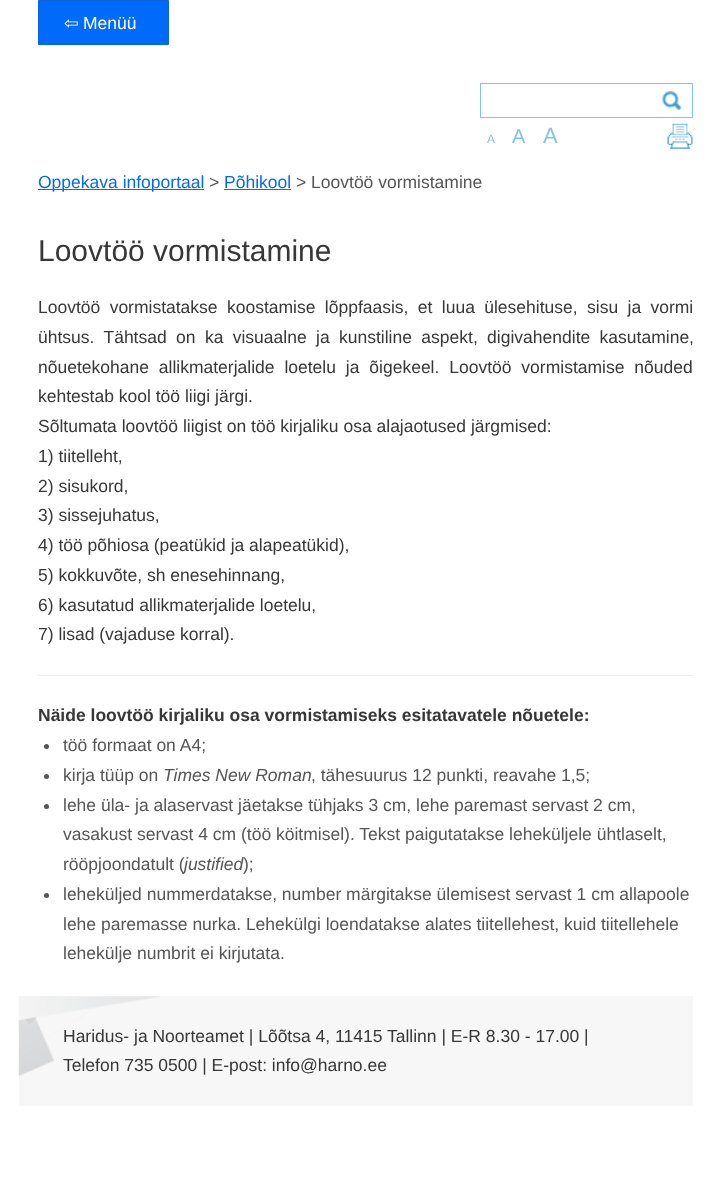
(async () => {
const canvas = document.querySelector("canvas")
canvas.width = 711
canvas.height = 1190
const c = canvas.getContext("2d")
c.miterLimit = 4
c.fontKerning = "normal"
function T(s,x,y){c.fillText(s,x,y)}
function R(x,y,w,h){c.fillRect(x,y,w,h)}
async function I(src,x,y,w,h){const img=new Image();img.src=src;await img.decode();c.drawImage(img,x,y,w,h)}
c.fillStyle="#fff"
R(0,0,711,1190)
c.fillStyle="#006bfa"
c.beginPath()
c.rect(38.5,.5,130,44)
c.fill()
c.strokeStyle="#0a65dd"
c.stroke()
c.font="17.5px DejaVu Sans"
c.fillStyle="#fff"
T("⇦",64,29)
c.font="17.5px Liberation Sans"
T("Menüü",83,29)
c.strokeStyle="#81c4ed"
c.strokeRect(480.5,83.5,212,34)
await I("1.png",662,91,20,19)
c.font="12px Liberation Sans"
c.fillStyle="#81c4ed"
T("A",487,143)
c.font="20px Liberation Sans"
T("A",512,143)
c.font="22px Liberation Sans"
T("A",543,143)
await I("2.png",667,123,26,26)
c.fillStyle="#006bfa"
R(38,189,166,1)
c.font="17.5px Liberation Sans"
T("Oppekava infoportaal",38,188)
c.fillStyle="#555"
T(">",209,188)
c.fillStyle="#006bfa"
T("Põhikool",224,188)
R(224,189,67,1)
c.fillStyle="#555"
T("> Loovtöö vormistamine",296,188)
c.font="30px Liberation Sans"
c.fillStyle="#373737"
T("Loovtöö vormistamine",38,261)
c.wordSpacing="4.5px"
c.font="17.5px Liberation Sans"
T("Loovtöö vormistatakse koostamise lõppfaasis, et luua ülesehituse, sisu ja vormi",38,313)
T("ühtsus. Tähtsad on ka visuaalne ja kunstiline aspekt, digivahendite kasutamine,",38,343)
c.wordSpacing="5px"
T("nõuetekohane allikmaterjalide loetelu ja õigekeel. Loovtöö vormistamise nõuded",38,373)
c.wordSpacing="0px"
T("kehtestab kool töö liigi järgi.",38,402)
T("Sõltumata loovtöö liigist on töö kirjaliku osa alajaotused järgmised:",38,432)
T("1) tiitelleht,",38,462)
T("2) sisukord,",38,492)
T("3) sissejuhatus,",38,521)
T("4) töö põhiosa (peatükid ja alapeatükid),",38,551)
T("5) kokkuvõte, sh enesehinnang,",38,581)
T("6) kasutatud allikmaterjalide loetelu,",38,611)
T("7) lisad (vajaduse korral).",38,640)
c.fillStyle="#eee"
R(38,675,655,1)
c.font="bold 17.5px Liberation Sans"
c.fillStyle="#373737"
T("Näide loovtöö kirjaliku osa vormistamiseks esitatavatele nõuetele:",38,721)
c.fillStyle="#555"
c.beginPath()
c.arc(46.5,746.5,2.5,0,7)
c.fill()
c.font="17.5px Liberation Sans"
T("töö formaat on A4;",63,751)
c.beginPath()
c.arc(46.5,776.5,2.5,0,7)
c.fill()
T("kirja tüüp on",63,781)
c.font="italic 17.5px Liberation Sans"
T("Times New Roman",163,781)
c.font="17.5px Liberation Sans"
T(", tähesuurus 12 punkti, reavahe 1,5;",311,781)
c.beginPath()
c.arc(46.5,806.5,2.5,0,7)
c.fill()
T("lehe üla- ja alaservast jäetakse tühjaks 3 cm, lehe paremast servast 2 cm,",63,811)
T("vasakust servast 4 cm (töö köitmisel). Tekst paigutatakse leheküljele ühtlaselt,",63,840)
T("rööpjoondatult (",63,870)
c.font="italic 17.5px Liberation Sans"
T("justified",184,870)
c.font="17.5px Liberation Sans"
T(");",243,870)
c.beginPath()
c.arc(46.5,895.5,2.5,0,7)
c.fill()
T("leheküljed nummerdatakse, number märgitakse ülemisest servast 1 cm allapoole",63,900)
T("lehe paremasse nurka. Lehekülgi loendatakse alates tiitellehest, kuid tiitellehele",63,930)
T("lehekülje numbrit ei kirjutata.",63,959)
c.fillStyle="#f7f7f7"
R(19,996,674,110)
await I("3.png",18,996,142,81)
c.fillStyle="#373737"
T("Haridus- ja Noorteamet | Lõõtsa 4, 11415 Tallinn | E-R 8.30 - 17.00 |",63,1042)
T("Telefon 735 0500 | E-post: info@harno.ee",63,1071)
})()
